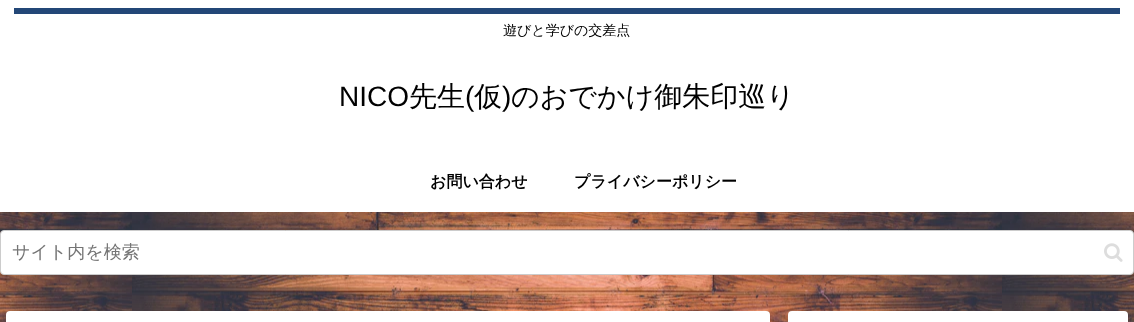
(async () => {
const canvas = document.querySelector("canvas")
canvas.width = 1134
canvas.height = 322
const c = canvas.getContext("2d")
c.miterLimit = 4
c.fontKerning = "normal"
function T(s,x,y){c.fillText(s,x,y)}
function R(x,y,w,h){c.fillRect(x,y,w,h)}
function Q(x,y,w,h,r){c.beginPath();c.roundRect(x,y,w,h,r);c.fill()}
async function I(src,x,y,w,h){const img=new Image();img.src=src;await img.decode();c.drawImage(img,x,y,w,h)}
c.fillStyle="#fff"
R(0,0,1134,322)
await I("1.png",0,212,1134,110)
c.fillStyle="#234777"
R(14,8,1106,6)
c.font="500 14px WenQuanYi Zen Hei"
c.fillStyle="#000"
T("遊びと学びの交差点",503,35)
c.font="28px Liberation Sans"
T("NICO",339,106)
c.font="500 28px WenQuanYi Zen Hei"
T("先生",409,106)
c.font="28px Liberation Sans"
T("(",465,106)
c.font="500 28px WenQuanYi Zen Hei"
T("仮",474,106)
c.font="28px Liberation Sans"
T(")",502,106)
c.font="500 28px WenQuanYi Zen Hei"
T("のおでかけ御朱印巡り",511,106)
c.font="bold 16px WenQuanYi Zen Hei"
T("お問い合わせ",430,187)
T("プライバシーポリシー",574,187)
c.fillStyle="#fff"
c.beginPath()
c.roundRect(.5,230.5,1133,44,3.5)
c.fill()
c.strokeStyle="#ccc"
c.stroke()
c.font="500 18px WenQuanYi Zen Hei"
c.fillStyle="#757575"
T("サイト内を検索",12,258)
await I("2.png",1104,243,19,19)
c.fillStyle="#fff"
Q(6,311,764,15,4)
Q(788,311,340,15,4)
})()
